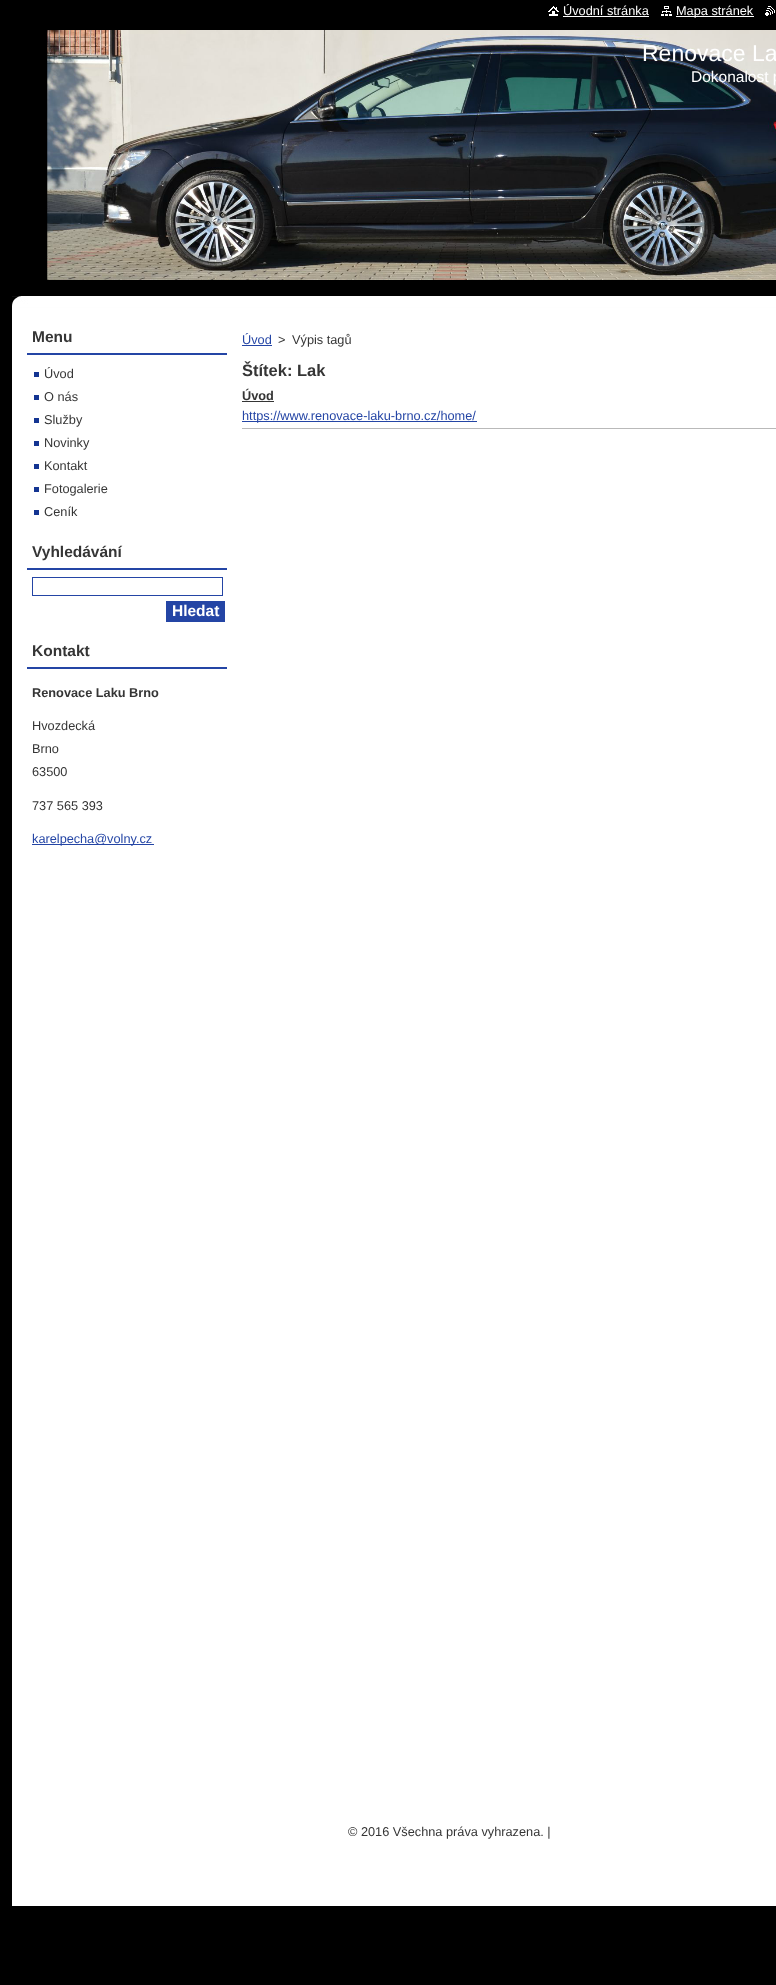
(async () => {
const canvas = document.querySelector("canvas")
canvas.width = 776
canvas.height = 1985
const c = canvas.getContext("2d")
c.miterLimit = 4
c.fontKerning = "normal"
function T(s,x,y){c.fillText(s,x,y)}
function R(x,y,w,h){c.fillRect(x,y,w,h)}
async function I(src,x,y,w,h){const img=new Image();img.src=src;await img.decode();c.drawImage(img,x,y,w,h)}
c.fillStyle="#000"
R(0,0,776,1985)
c.fillStyle="#fff"
R(12,308,764,1598)
await I("1.png",548,6,11,10)
c.font="12.75px Liberation Sans"
T("Úvodní stránka",563,15)
R(563,16,86,1)
await I("2.png",661,6,11,10)
R(676,16,78,1)
T("Mapa stránek",676,15)
await I("3.png",765,6,10,10)
await I("4.png",12,296,764,12)
await I("5.png",47,30,729,250)
c.font="23px Liberation Sans"
T("Renovace La",642,61)
c.font="15.5px Liberation Sans"
T("Dokonalost p",691,82)
c.fillStyle="#2445a5"
R(27,353,200,2)
c.font="bold 15.5px Liberation Sans"
c.fillStyle="#353535"
T("Menu",32,342)
c.font="12.75px Liberation Sans"
T("Úvod",44,378)
c.fillStyle="#143592"
R(34,372,5,5)
c.fillStyle="#353535"
T("O nás",44,401)
c.fillStyle="#143592"
R(34,395,5,5)
c.fillStyle="#353535"
T("Služby",44,424)
c.fillStyle="#143592"
R(34,418,5,5)
c.fillStyle="#353535"
T("Novinky",44,447)
c.fillStyle="#143592"
R(34,441,5,5)
c.fillStyle="#353535"
T("Kontakt",44,470)
c.fillStyle="#143592"
R(34,464,5,5)
c.fillStyle="#353535"
T("Fotogalerie",44,493)
c.fillStyle="#143592"
R(34,487,5,5)
c.fillStyle="#353535"
T("Ceník",44,516)
c.fillStyle="#143592"
R(34,510,5,5)
c.fillStyle="#2445a5"
R(27,568,200,2)
c.font="bold 15.5px Liberation Sans"
c.fillStyle="#353535"
T("Vyhledávání",32,557)
c.strokeStyle="#2445a5"
c.strokeRect(32.5,577.5,190,18)
c.fillStyle="#2445a5"
R(166,601,59,21)
c.fillStyle="#fff"
T("Hledat",172,616)
c.fillStyle="#2445a5"
R(27,667,200,2)
c.fillStyle="#353535"
T("Kontakt",32,656)
c.font="bold 12.75px Liberation Sans"
T("Renovace Laku Brno",32,697)
c.font="12.75px Liberation Sans"
T("Hvozdecká",32,730)
T("Brno",32,753)
T("63500",32,776)
T("737 565 393",32,810)
c.fillStyle="#2445a5"
R(32,844,48,1)
T("karelpec",32,843)
R(80,844,57,1)
T("ha@volny.cz",80,843)
R(137,844,17,1)
T("Úvod",242,344)
R(242,345,30,1)
c.fillStyle="#353535"
T(">",278,344)
T("Výpis tagů",292,344)
c.font="bold 16.5px Liberation Sans"
T("Štítek: Lak",242,376)
c.fillStyle="#b9b9b9"
R(242,428,534,1)
c.font="bold 12.75px Liberation Sans"
c.fillStyle="#353535"
T("Úvod",242,400)
R(242,401,32,1)
c.fillStyle="#2445a5"
R(242,421,235,1)
c.font="12.75px Liberation Sans"
T("https://www.renovace-laku-brno.cz/home/",242,420)
c.fillStyle="#353535"
T("© 2016 Všechna práva vyhrazena. |",348,1836)
})()
